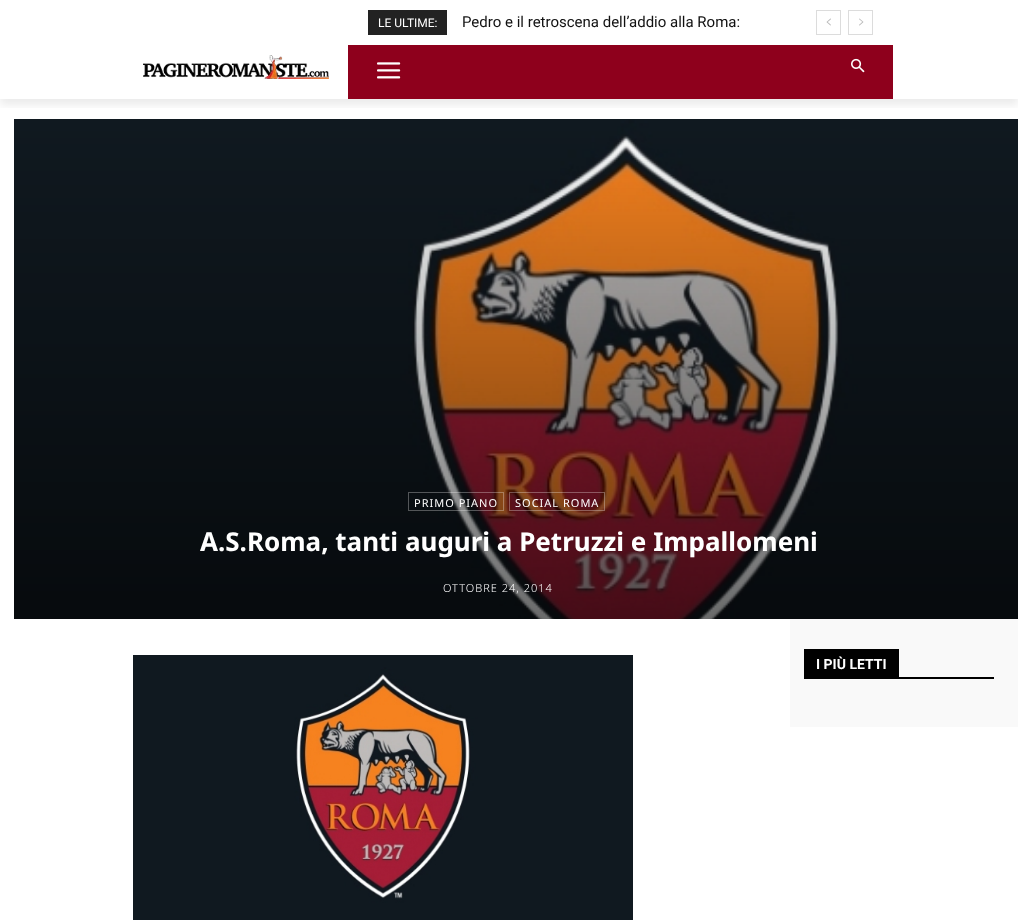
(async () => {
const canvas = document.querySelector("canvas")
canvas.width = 1018
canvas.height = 920
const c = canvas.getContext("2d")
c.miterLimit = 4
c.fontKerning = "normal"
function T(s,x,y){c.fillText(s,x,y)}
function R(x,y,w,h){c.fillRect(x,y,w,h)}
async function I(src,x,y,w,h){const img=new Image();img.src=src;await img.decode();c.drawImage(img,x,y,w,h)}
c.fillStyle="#fff"
R(0,0,1018,920)
c.fillStyle="#222"
R(368,10,79,25)
c.strokeStyle="#dcdcdc"
c.strokeRect(816.5,10.5,24,24)
await I("1.png",826,18,5,8)
c.strokeRect(848.5,10.5,24,24)
await I("2.png",859,18,5,8)
c.fillStyle="#8e001c"
R(348,45,545,54)
await I("3.png",377,62,24,17)
await I("5.png",143,55,186,24)
c.save()
c.beginPath()
c.rect(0,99,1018,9)
c.clip()
c.fillStyle="#00000014"
c.filter="blur(4px)"
c.beginPath()
c.rect(0,6,1018,99)
c.fill()
c.filter="none"
c.restore()
c.font="12px Roboto"
c.fillStyle="#fff"
T("LE ULTIME:",378,27)
c.font="15px Roboto"
c.fillStyle="#111"
T("Pedro e il retroscena dell’addio alla Roma:",462,27)
await I("4.png",851,58,14,15)
await I("6.png",14,119,1004,500)
c.strokeStyle="#ffffff4d"
c.strokeRect(408.5,492.5,95,18)
c.letterSpacing="1px"
c.font="11px Noto Sans"
c.fillStyle="#fff"
T("PRIMO PIANO",414,507)
c.strokeRect(509.5,492.5,95,18)
T("SOCIAL ROMA",515,507)
c.letterSpacing="0px"
c.font="bold 26px Noto Sans"
T("A.S.Roma, tanti auguri a Petruzzi e Impallomeni",200,551)
c.letterSpacing="1px"
c.font="300 11px Noto Sans"
T("OTTOBRE 24, 2014",443,592)
await I("7.png",133,655,500,265)
c.fillStyle="#f9f9f9"
R(790,619,228,108)
c.fillStyle="#000"
R(804,677,190,2)
R(804,649,95,28)
c.letterSpacing="0px"
c.font="bold 14px Roboto"
c.fillStyle="#fff"
T("I PIÙ LETTI",816,669)
})()
